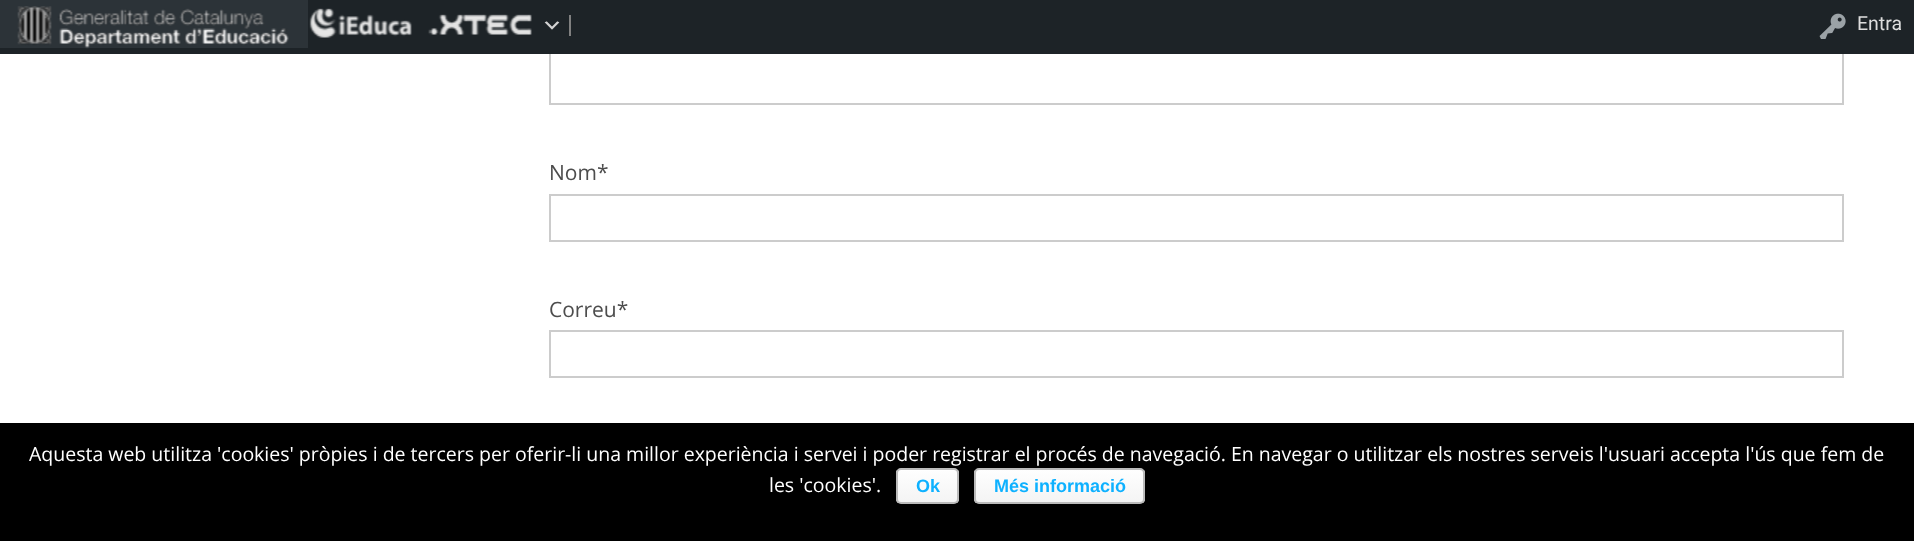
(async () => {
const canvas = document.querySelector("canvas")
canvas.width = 1914
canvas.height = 541
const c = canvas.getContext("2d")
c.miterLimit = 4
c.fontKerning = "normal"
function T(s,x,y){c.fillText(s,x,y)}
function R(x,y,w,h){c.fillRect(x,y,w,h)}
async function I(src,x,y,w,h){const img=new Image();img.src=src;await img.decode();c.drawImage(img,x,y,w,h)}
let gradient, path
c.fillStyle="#fff"
R(0,0,1914,541)
c.strokeStyle="#ccc"
c.lineWidth=2
c.strokeRect(550,-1,1293,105)
c.fillStyle="#1d2327"
R(0,0,1914,54)
c.fillStyle="#2c3338"
R(0,0,308,48)
await I("1.png",17,6,272,43)
await I("2.png",309,8,103,30)
await I("3.png",428,14,104,21)
c.fillStyle="#808080"
R(569,15,2,21)
await I("4.png",544,21,16,9)
await I("5.png",1819,13,27,26)
c.font="19.5px Roboto"
c.fillStyle="#ddd"
T("Entra",1857,30)
c.font="21px Open Sans"
c.fillStyle="#4d4d4d"
T("Nom*",549,180)
c.strokeRect(550,195,1293,46)
T("Correu*",549,317)
c.strokeRect(550,331,1293,46)
c.fillStyle="#000"
R(0,423,1914,118)
c.font="19.5px Open Sans"
c.fillStyle="#fff"
T("Aquesta web utilitza 'cookies' pròpies i de tercers per oferir-li una millor experiència i servei i poder registrar el procés de navegació. En navegar o utilitzar els nostres serveis l'usuari accepta l'ús que fem de",29,461)
T("les 'cookies'.",769,492)
c.save()
c.beginPath()
c.roundRect(896,468,63,36,5)
c.clip()
gradient = c.createLinearGradient(927,470,927,503)
gradient.addColorStop(0,"#fefefe")
gradient.addColorStop(1,"#f4f4f4")
c.fillStyle = gradient
R(896,470,63,33)
c.restore()
path = new Path2D("M900 471h54c2 0 3 1 3 3c0-6-8-4-12-4h-36c-4 0-12-2-12 4c0-2 1-3 3-3z")
c.fill(path)
c.beginPath()
c.roundRect(897,469,61,34,4)
c.strokeStyle="#bbb"
c.stroke()
c.font="bold 18px Liberation Sans"
c.fillStyle="#0eb1ff"
T("Ok",916,492)
c.save()
c.beginPath()
c.roundRect(974,468,171,36,5)
c.clip()
gradient = c.createLinearGradient(1059,470,1059,503)
gradient.addColorStop(0,"#fefefe")
gradient.addColorStop(1,"#f4f4f4")
c.fillStyle = gradient
R(974,470,171,33)
c.restore()
c.beginPath()
c.roundRect(975,469,169,34,4)
c.stroke()
T("Més informació",994,492)
})()
